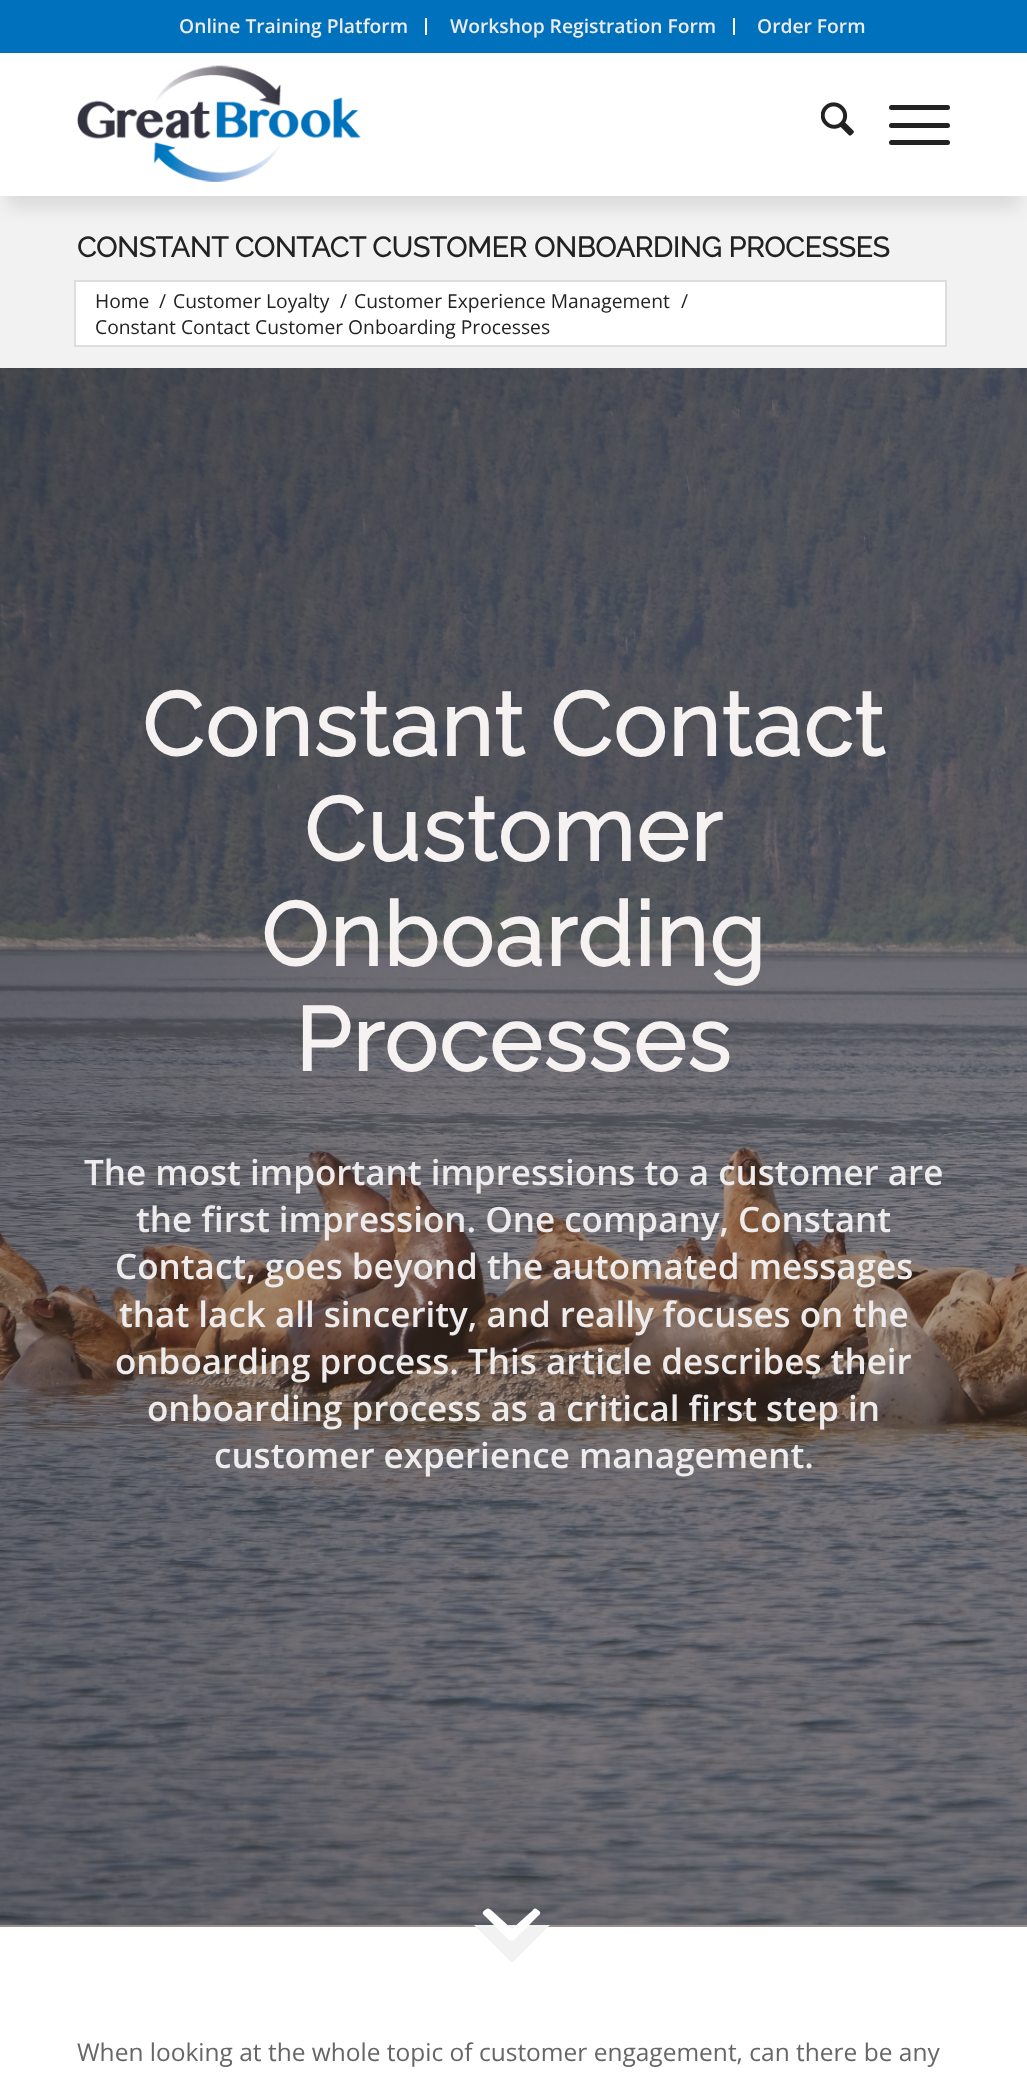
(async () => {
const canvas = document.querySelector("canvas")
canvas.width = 1027
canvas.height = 2079
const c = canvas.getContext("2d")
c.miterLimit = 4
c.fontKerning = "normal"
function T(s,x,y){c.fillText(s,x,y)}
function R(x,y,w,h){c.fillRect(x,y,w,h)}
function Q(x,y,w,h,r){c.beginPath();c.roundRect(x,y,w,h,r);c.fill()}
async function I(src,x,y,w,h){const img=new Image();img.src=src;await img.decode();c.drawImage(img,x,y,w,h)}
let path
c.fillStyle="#fff"
R(0,0,1027,2079)
c.fillStyle="#f2f2f2"
R(0,196,1027,172)
c.fillStyle="#0000001a"
c.filter="blur(9px)"
c.beginPath()
c.rect(7,25,1013,182)
c.fill()
c.filter="none"
c.fillStyle="#0071bc"
R(0,0,1027,53)
c.fillStyle="#fff"
R(425,18,2,17)
c.font="600 19.25px Open Sans"
c.fillStyle="#edebeb"
T("Online Training Platform",179,33)
c.fillStyle="#fff"
R(733,18,2,17)
c.fillStyle="#edebeb"
T("Workshop Registration Form",450,33)
T("Order Form",757,33)
c.fillStyle="#fff"
R(0,53,1027,143)
await I("1.png",77,65,284,117)
await I("2.png",821,102,33,34)
c.fillStyle="#222"
Q(889,123,61,5,2.5)
Q(889,105,61,5,2.5)
Q(889,140,61,5,2.5)
c.font="bold 28px Raleway"
T("CONSTANT CONTACT CUSTOMER ONBOARDING PROCESSES",77,257)
c.fillStyle="#fff"
c.beginPath()
c.rect(75,281,871,65)
c.fill()
c.strokeStyle="#ddd"
c.lineWidth=2
c.stroke()
c.font="19.25px Open Sans"
c.fillStyle="#222"
T("Home",95,308)
T("/",159,308)
T("Customer Loyalty",173,308)
T("/",340,308)
T("Customer Experience Management",354,308)
T("/",681,308)
T("Constant Contact Customer Onboarding Processes",95,334)
await I("3.png",0,368,1027,1557)
c.fillStyle="#e4e4e4"
R(0,1925,1027,2)
c.fillStyle="#50392c80"
R(0,368,1027,1559)
c.letterSpacing="1.75px"
c.font="bold 89.25px Raleway"
c.fillStyle="#f7f2f2"
T("Constant Contact",142,756)
T("Customer",304,861)
T("Onboarding",261,966)
T("Processes",295,1071)
c.letterSpacing="0px"
c.font="600 35px Open Sans"
c.fillStyle="#edebeb"
T("The most important impressions to a customer are",84,1185)
T("the first impression. One company, Constant",136,1232)
T("Contact, goes beyond the automated messages",115,1279)
T("that lack all sincerity, and really focuses on the",119,1327)
T("onboarding process. This article describes their",115,1374)
T("onboarding process as a critical first step in",147,1421)
T("customer experience management.",214,1468)
c.save()
c.beginPath()
c.rect(469,1925,88,44)
c.clip()
c.fillStyle="#f2f2f2"
path = new Path2D("M512 1839l62 62l-62 62l-62-62z")
c.fill(path)
c.restore()
c.fillStyle="#fff"
path = new Path2D("M533 1910c1-2 3-2 5 0c3 2 3 4 0 6l-24 24c-1 1-3 1-5 0l-24-24c-3-2-3-4 0-6c2-2 4-2 6 0l21 19z")
c.fill(path)
c.font="24.5px Open Sans"
c.fillStyle="#666"
T("When looking at the whole topic of customer engagement, can there be any",77,2061)
})()
